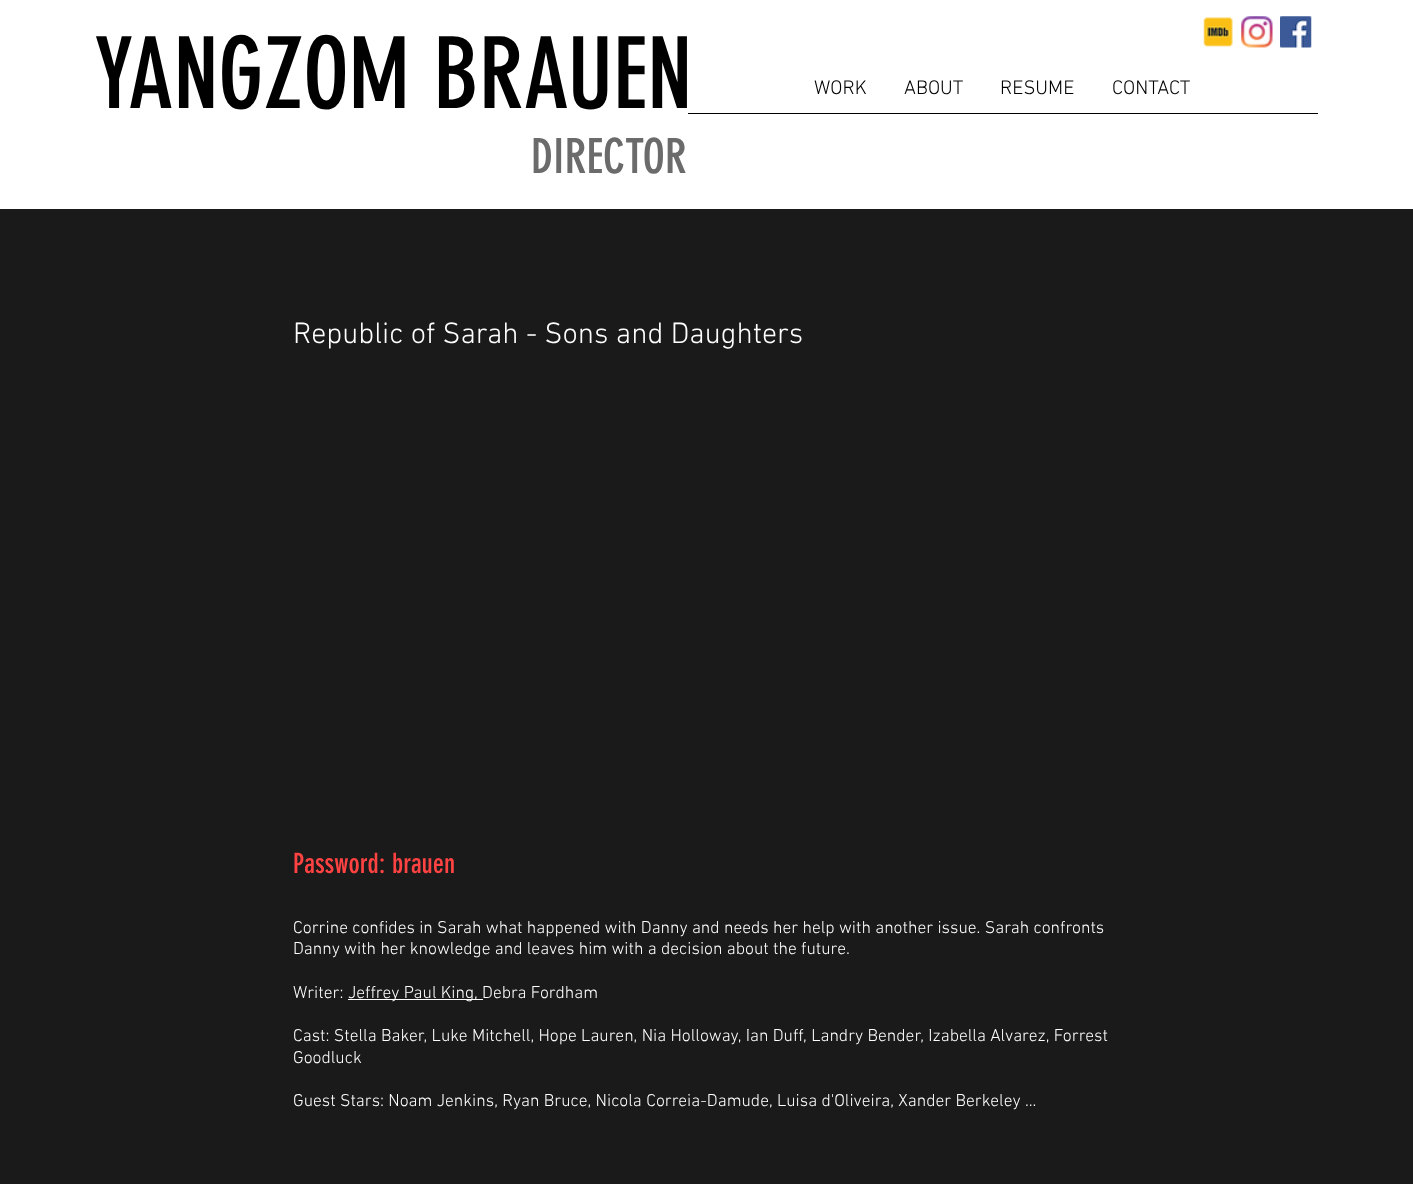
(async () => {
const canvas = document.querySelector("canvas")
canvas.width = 1413
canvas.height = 1184
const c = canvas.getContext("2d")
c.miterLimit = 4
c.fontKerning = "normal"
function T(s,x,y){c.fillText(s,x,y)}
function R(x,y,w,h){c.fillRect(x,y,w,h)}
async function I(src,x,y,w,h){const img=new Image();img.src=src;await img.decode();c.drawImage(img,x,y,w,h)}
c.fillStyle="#1a1a1a"
R(0,0,1413,1184)
c.fillStyle="#fff"
R(0,0,1413,209)
c.font="97.5px 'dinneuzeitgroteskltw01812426'"
c.fillStyle="#000"
T("YANGZOM BRAUEN",94,108)
c.font="300 20px 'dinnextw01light'"
T("WORK",814,94)
T("ABOUT",904,94)
T("RESUME",1000,94)
T("CONTACT",1112,94)
R(688,113,630,1)
await I("1.png",1203,17,30,30)
await I("2.png",1241,16,32,32)
await I("3.png",1280,16,32,32)
c.font="47.5px 'dinneuzeitgroteskltw01812426'"
c.fillStyle="#6b6b6b"
T("DIRECTOR",531,173)
c.font="300 30px 'dinnextw01light'"
c.fillStyle="#fff"
T("Republic of Sarah - Sons and Daughters",293,343)
c.font="27.5px 'dinneuzeitgroteskltw01812426'"
c.fillStyle="#ff4242"
T("Password: brauen",293,873)
c.font="300 17.5px 'dinnextw01light'"
c.fillStyle="#fff"
T("Corrine confides in Sarah what happened with Danny and needs her help with another issue. Sarah confronts",293,933)
T("Danny with her knowledge and leaves him with a decision about the future.",293,954)
T("Writer:",293,998)
R(348,999,135,1)
T("Jeffrey Paul King, Debra Fordham",348,998)
T("Cast: Stella Baker, Luke Mitchell, Hope Lauren, Nia Holloway, Ian Duff, Landry Bender, Izabella Alvarez, Forrest",293,1041)
T("Goodluck",293,1063)
T("Guest Stars: Noam Jenkins, Ryan Bruce, Nicola Correia-Damude, Luisa d'Oliveira, Xander Berkeley ...",293,1106)
})()
